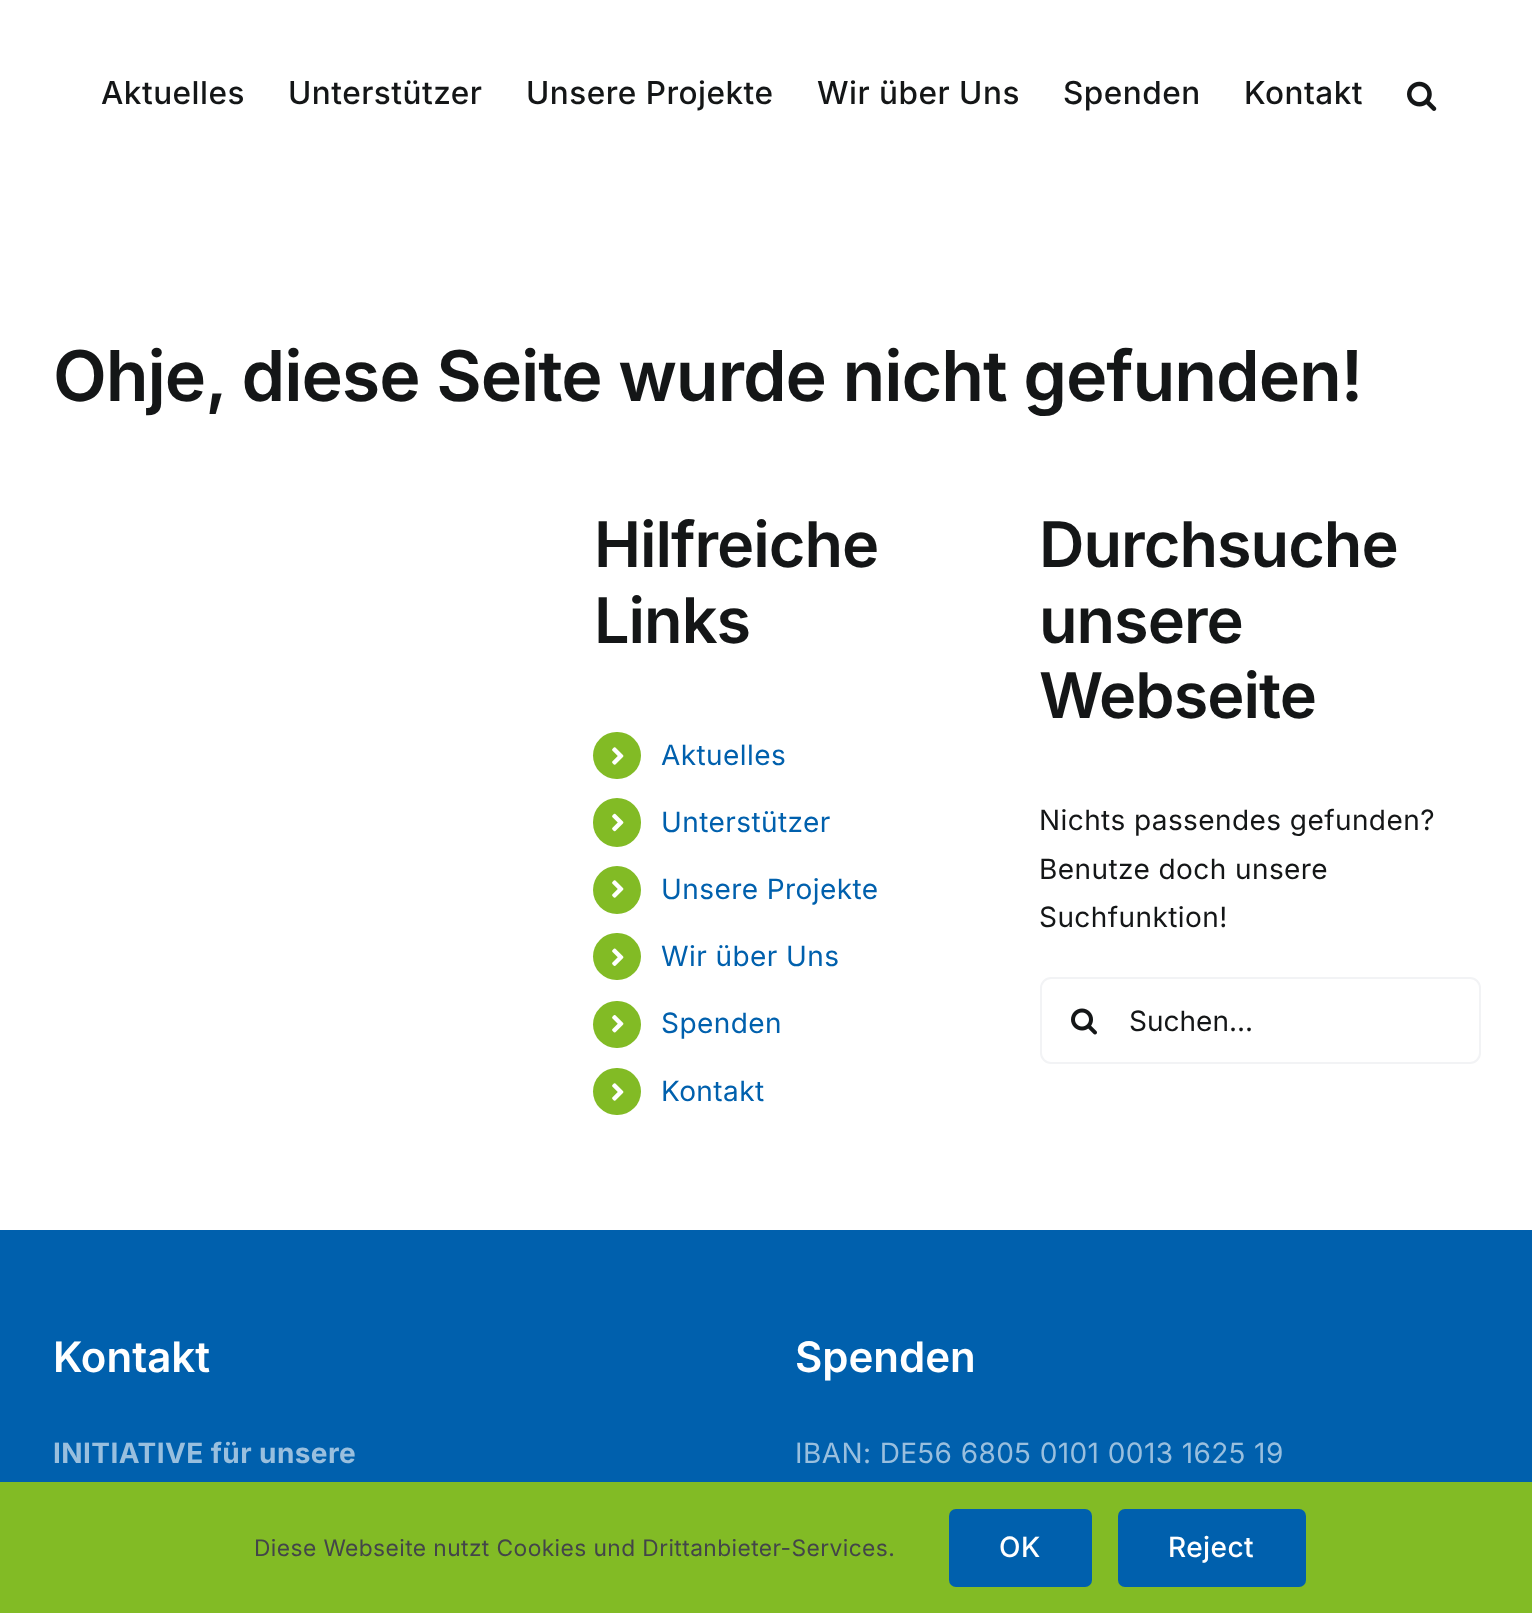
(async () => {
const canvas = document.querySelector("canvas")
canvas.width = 1532
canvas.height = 1613
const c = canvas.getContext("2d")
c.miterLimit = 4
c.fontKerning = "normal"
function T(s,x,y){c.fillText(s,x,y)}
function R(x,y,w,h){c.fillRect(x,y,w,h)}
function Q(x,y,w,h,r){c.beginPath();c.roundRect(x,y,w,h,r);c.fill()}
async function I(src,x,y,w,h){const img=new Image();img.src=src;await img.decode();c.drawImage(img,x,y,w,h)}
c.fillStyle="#fff"
R(0,0,1532,1613)
c.letterSpacing="0.5px"
c.font="500 31.5px Inter"
c.fillStyle="#141617"
T("Aktuelles",101,104)
T("Unterstützer",288,104)
T("Unsere Projekte",526,104)
T("Wir über Uns",817,104)
T("Spenden",1063,104)
T("Kontakt",1244,104)
await I("1.png",1407,81,30,30)
c.letterSpacing="-1.05px"
c.font="600 70px Inter"
T("Ohje, diese Seite wurde nicht gefunden!",53,401)
c.letterSpacing="-1px"
c.font="600 63px Inter"
T("Hilfreiche",594,567)
T("Links",594,643)
c.fillStyle="#82bb25"
Q(593,732,48,47,23.5)
await I("2.png",612,747,12,18)
c.letterSpacing="0.42px"
c.font="28px Inter"
c.fillStyle="#0060ad"
T("Aktuelles",661,765)
c.fillStyle="#82bb25"
Q(593,798,48,49,24)
await I("3.png",612,813,12,19)
c.fillStyle="#0060ad"
T("Unterstützer",661,832)
c.fillStyle="#82bb25"
c.beginPath()
c.arc(617,890,24,0,7)
c.fill()
await I("2.png",612,880,12,18)
c.fillStyle="#0060ad"
T("Unsere Projekte",661,899)
c.fillStyle="#82bb25"
Q(593,933,48,47,23.5)
await I("4.png",612,948,12,18)
c.fillStyle="#0060ad"
T("Wir über Uns",661,966)
c.fillStyle="#82bb25"
Q(593,1001,48,47,23.5)
await I("5.png",612,1015,12,18)
c.fillStyle="#0060ad"
T("Spenden",661,1033)
c.fillStyle="#82bb25"
Q(593,1068,48,47,23.5)
await I("2.png",612,1083,12,18)
c.fillStyle="#0060ad"
T("Kontakt",661,1101)
c.letterSpacing="-1px"
c.font="600 63px Inter"
c.fillStyle="#141617"
T("Durchsuche",1039,567)
T("unsere",1039,643)
T("Webseite",1039,718)
c.letterSpacing="0.42px"
c.font="28px Inter"
T("Nichts passendes gefunden?",1039,830)
T("Benutze doch unsere",1039,879)
T("Suchfunktion!",1039,927)
c.beginPath()
c.roundRect(1041,978,439,85,10)
c.strokeStyle="#f2f3f5"
c.lineWidth=2
c.stroke()
await I("6.png",1071,1008,26,27)
c.letterSpacing="0px"
T("Suchen...",1129,1031)
c.fillStyle="#0060ad"
R(0,1230,1532,252)
c.font="600 42px Inter"
c.fillStyle="#fff"
T("Kontakt",53,1372)
c.letterSpacing="0.42px"
c.font="bold 28px Inter"
c.fillStyle="#99bfde"
T("INITIATIVE für unsere",53,1463)
c.letterSpacing="0px"
c.font="600 42px Inter"
c.fillStyle="#fff"
T("Spenden",795,1372)
c.letterSpacing="0.42px"
c.font="28px Inter"
c.fillStyle="#99bfde"
T("IBAN: DE56 6805 0101 0013 1625 19",795,1463)
c.fillStyle="#82bb25"
R(0,1482,1532,131)
c.font="22.75px Inter"
c.fillStyle="#434549"
T("Diese Webseite nutzt Cookies und Drittanbieter-Services.",254,1556)
c.fillStyle="#0060ad"
Q(949,1509,143,78,7)
c.font="500 28px Inter"
c.fillStyle="#fff"
T("OK",999,1557)
c.fillStyle="#0060ad"
Q(1118,1509,188,78,7)
c.fillStyle="#fff"
T("Reject",1168,1557)
})()
